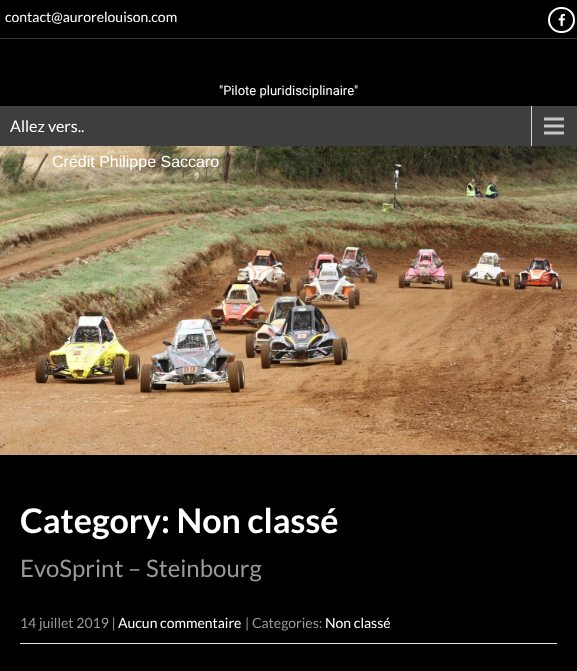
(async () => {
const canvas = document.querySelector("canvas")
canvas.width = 577
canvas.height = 671
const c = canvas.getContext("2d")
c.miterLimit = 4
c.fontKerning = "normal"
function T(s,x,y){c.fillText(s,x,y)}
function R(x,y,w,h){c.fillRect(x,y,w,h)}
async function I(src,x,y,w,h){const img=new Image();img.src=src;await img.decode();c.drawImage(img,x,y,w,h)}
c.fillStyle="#000"
R(0,0,577,671)
c.fillStyle="#363637"
R(0,38,577,1)
c.font="14px Lato"
c.fillStyle="#fff"
T("contact@aurorelouison.com",5,22)
c.beginPath()
c.roundRect(549,8,25,24,12)
c.strokeStyle="#fff"
c.lineWidth=2
c.stroke()
await I("1.png",558,13,7,13)
c.font="13px Roboto"
T("\"Pilote pluridisciplinaire\"",219,95)
c.fillStyle="#3e3e3e"
R(0,106,577,40)
await I("2.png",531,106,33,40)
c.font="16px Lato"
c.fillStyle="#fff"
T("Allez vers..",10,132)
await I("3.png",0,146,577,309)
c.font="16px Arimo"
T("Crédit Philippe Saccaro",52,167)
c.font="bold 34px Lato"
T("Category: Non classé",20,533)
c.font="24px Lato"
c.fillStyle="#999"
T("EvoSprint – Steinbourg",20,577)
c.fillStyle="#e8e8e8"
R(20,643,537,1)
c.font="14px Lato"
c.fillStyle="#999"
T("14 juillet 2019 |",20,628)
c.fillStyle="#fff"
T("Aucun commentaire",118,628)
c.fillStyle="#999"
T("| Categories:",245,628)
c.fillStyle="#fff"
T("Non classé",325,628)
})()
